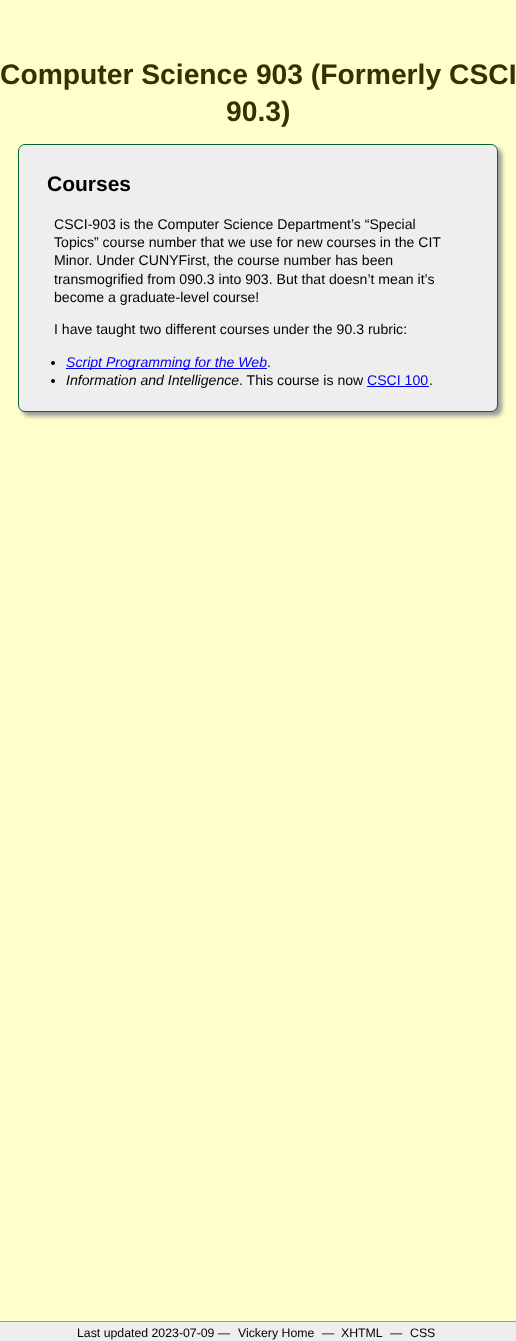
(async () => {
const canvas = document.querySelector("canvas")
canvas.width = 516
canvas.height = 1341
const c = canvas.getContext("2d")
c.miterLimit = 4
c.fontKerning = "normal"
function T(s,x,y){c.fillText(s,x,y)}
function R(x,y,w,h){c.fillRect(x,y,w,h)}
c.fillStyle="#ffc"
R(0,0,516,1341)
c.font="bold 28.25px Liberation Sans"
c.fillStyle="#330"
T("Computer Science 903 (Formerly CSCI",0,84)
T("90.3)",226,121)
c.fillStyle="#999"
c.filter="blur(2px)"
c.beginPath()
c.roundRect(22,148,480,268,7)
c.fill()
c.filter="none"
c.fillStyle="#eee"
c.beginPath()
c.roundRect(18.5,144.5,479,267,6.5)
c.fill()
c.strokeStyle="#063"
c.stroke()
c.font="bold 21px Liberation Sans"
c.fillStyle="#000"
T("Courses",47,191)
c.font="14.1px Liberation Sans"
T("CSCI-903 is the Computer Science Department’s “Special",54,229)
T("Topics” course number that we use for new courses in the CIT",54,247)
T("Minor. Under CUNYFirst, the course number has been",54,265)
T("transmogrified from 090.3 into 903. But that doesn’t mean it’s",54,284)
T("become a graduate-level course!",54,302)
T("I have taught two different courses under the 90.3 rubric:",54,334)
c.beginPath()
c.arc(53,363,2,0,7)
c.fill()
c.fillStyle="#00e"
R(66,368,201,1)
c.font="italic 14.1px Liberation Sans"
T("Script Programming for the Web",66,367)
c.font="14.1px Liberation Sans"
c.fillStyle="#000"
T(".",267,367)
c.beginPath()
c.arc(53,381,2,0,7)
c.fill()
c.font="italic 14.1px Liberation Sans"
T("Information and Intelligence",66,385)
c.font="14.1px Liberation Sans"
T(". This course is now",239,385)
c.fillStyle="#00e"
T("CSCI 100",367,385)
R(367,386,62,1)
c.fillStyle="#000"
T(".",429,385)
c.fillStyle="#eee"
R(0,1322,516,19)
c.fillStyle="#999"
R(0,1321,516,1)
c.font="12.3px Liberation Sans"
c.fillStyle="#000"
T("Last updated 2023-07-09 —",77,1337)
T("Vickery Home",238,1337)
T("—",322,1337)
T("XHTML",341,1337)
T("—",390,1337)
T("CSS",410,1337)
})()
